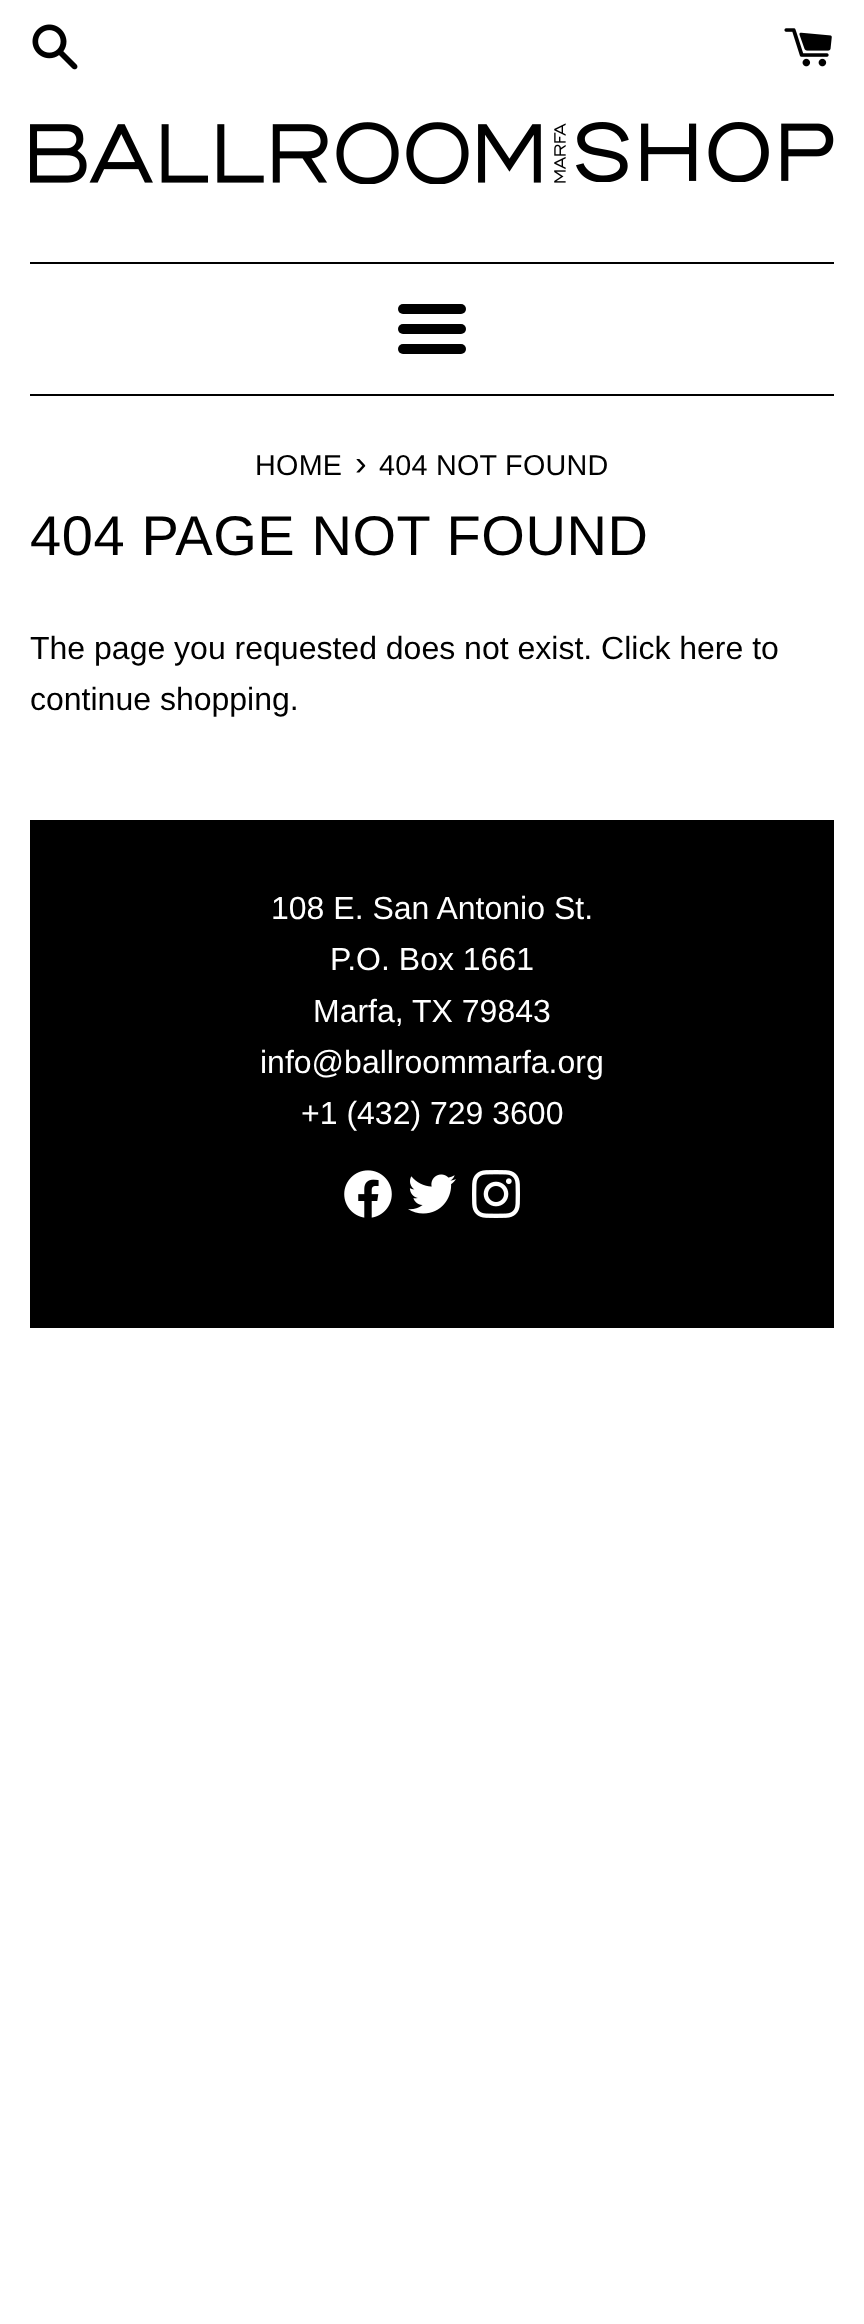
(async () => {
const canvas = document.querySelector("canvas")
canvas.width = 864
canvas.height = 2324
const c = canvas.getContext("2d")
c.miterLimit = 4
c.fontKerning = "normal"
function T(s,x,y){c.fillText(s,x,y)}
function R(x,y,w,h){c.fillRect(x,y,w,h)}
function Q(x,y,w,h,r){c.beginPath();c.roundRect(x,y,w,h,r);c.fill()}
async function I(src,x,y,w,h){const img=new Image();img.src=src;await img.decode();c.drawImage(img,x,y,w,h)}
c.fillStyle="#fff"
R(0,0,864,2324)
await I("1.png",32,24,46,46)
await I("2.png",784,28,48,39)
await I("3.png",30,122,536,62)
await I("4.png",576,122,258,60)
c.fillStyle="#000"
R(30,262,804,2)
Q(398,304,68,10,5)
Q(398,324,68,10,5)
Q(398,344,68,10,5)
R(30,394,804,2)
c.letterSpacing="0.25px"
c.font="28.75px Liberation Sans"
T("HOME",255,475)
c.font="35px Liberation Sans"
T("›",355,475)
c.font="28.75px Liberation Sans"
T("404 NOT FOUND",379,475)
c.letterSpacing="0.6px"
c.font="56px Liberation Sans"
T("404 PAGE NOT FOUND",30,555)
c.letterSpacing="0px"
c.font="32px Liberation Sans"
T("The page you requested does not exist. Click here to",30,659)
T("continue shopping.",30,710)
R(30,820,804,508)
c.fillStyle="#fff"
T("108 E. San Antonio St.",271,919)
T("P.O. Box 1661",330,970)
T("Marfa, TX 79843",313,1022)
T("info@ballroommarfa.org",260,1073)
T("+1 (432) 729 3600",301,1124)
await I("5.png",344,1170,48,48)
await I("6.png",408,1174,48,40)
await I("7.png",472,1170,48,48)
})()
